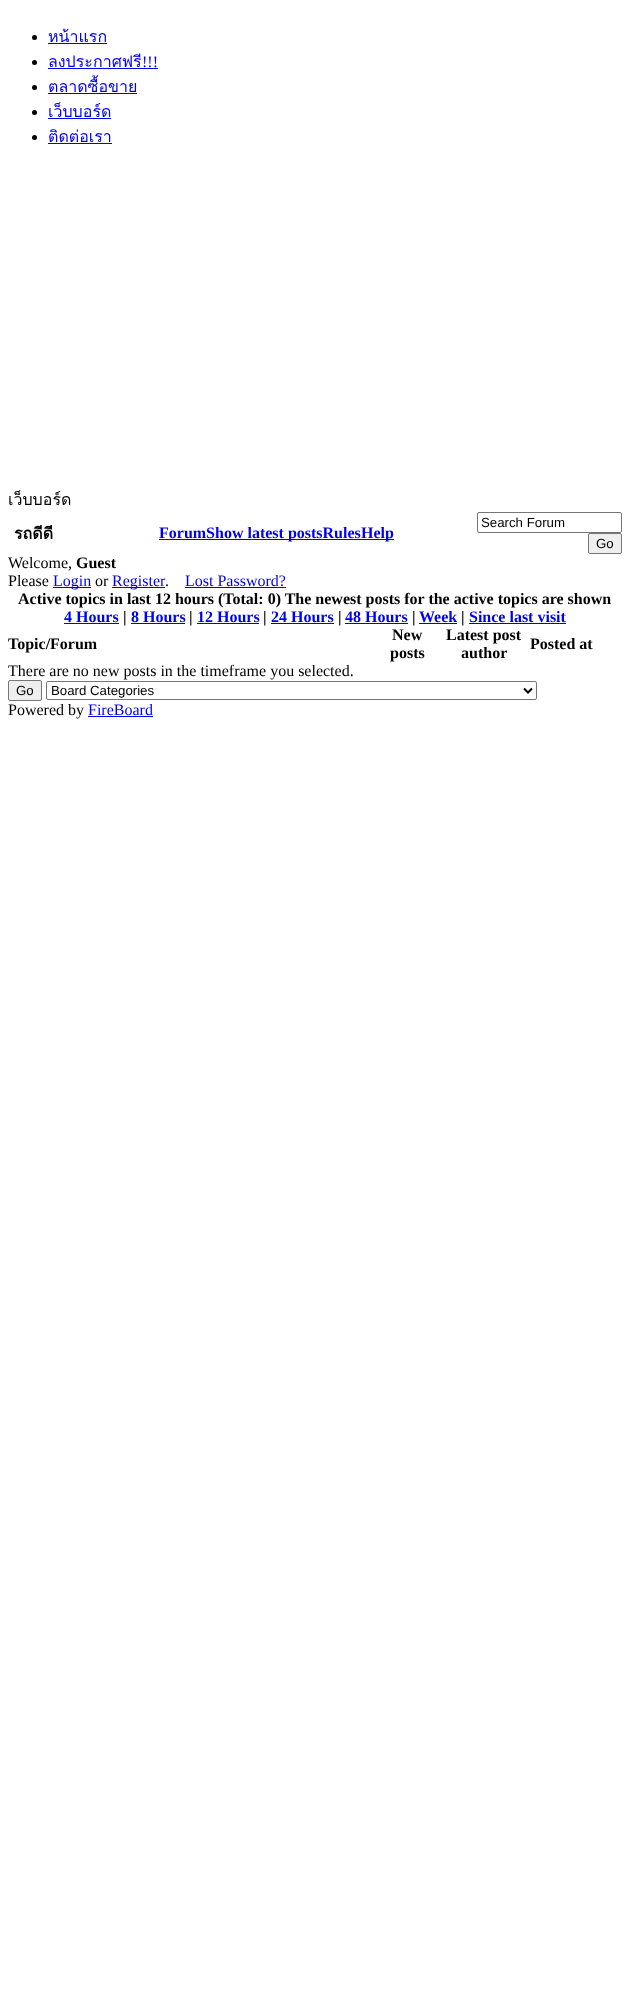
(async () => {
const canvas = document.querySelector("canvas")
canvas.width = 630
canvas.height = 2008
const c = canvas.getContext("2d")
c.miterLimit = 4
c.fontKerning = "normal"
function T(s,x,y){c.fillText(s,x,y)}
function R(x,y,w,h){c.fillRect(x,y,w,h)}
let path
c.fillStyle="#fff"
R(0,0,630,2008)
c.fillStyle="#000"
c.beginPath()
c.arc(34.5,37.5,2.5,0,7)
c.fill()
c.font="16px Loma"
c.fillStyle="#00e"
T("หน้าแรก",48,42)
R(48,43,59,1)
c.fillStyle="#000"
c.beginPath()
c.arc(34.5,62.5,2.5,0,7)
c.fill()
c.fillStyle="#00e"
T("ลงประกาศฟรี",48,67)
c.font="16px Liberation Serif"
T("!!!",142,67)
R(48,68,110,1)
c.fillStyle="#000"
c.beginPath()
c.arc(34.5,87.5,2.5,0,7)
c.fill()
c.font="16px Loma"
c.fillStyle="#00e"
T("ตลาดซื้อขาย",48,92)
R(48,93,89,1)
c.fillStyle="#000"
c.beginPath()
c.arc(34.5,112.5,2.5,0,7)
c.fill()
c.fillStyle="#00e"
T("เว็บบอร์ด",48,117)
R(48,118,63,1)
c.fillStyle="#000"
c.beginPath()
c.arc(34.5,137.5,2.5,0,7)
c.fill()
c.fillStyle="#00e"
T("ติดต่อเรา",48,142)
R(48,143,64,1)
c.fillStyle="#000"
T("เว็บบอร์ด",8,505)
c.font="bold 16px Loma"
T("รถดีดี",14,539)
c.fillStyle="#00e"
R(159,539,163,1)
c.font="bold 16px Liberation Serif"
T("ForumShow latest postsRules",159,538)
R(322,539,72,1)
T("Help",361,538)
c.beginPath()
c.roundRect(477.5,512.5,144,20,1.5)
c.strokeStyle="#767676"
c.stroke()
c.font="13.25px Liberation Sans"
c.fillStyle="#000"
T("Search Forum",481,527)
c.fillStyle="#efefef"
c.beginPath()
c.roundRect(588.5,533.5,33,20,1.5)
c.fill()
c.stroke()
c.fillStyle="#000"
T("Go",596,548)
c.font="16px Liberation Serif"
T("Welcome,",8,568)
c.font="bold 16px Liberation Serif"
T("Guest",76,568)
c.font="16px Liberation Serif"
T("Please",8,586)
c.fillStyle="#00e"
R(53,587,38,1)
T("Login",53,586)
c.fillStyle="#000"
T("or",95,586)
c.fillStyle="#00e"
R(112,587,53,1)
T("Register",112,586)
c.fillStyle="#000"
T(".",165,586)
c.fillStyle="#00e"
T("Lost Password?",185,586)
R(185,587,101,1)
c.font="bold 16px Liberation Serif"
c.fillStyle="#000"
T("Active topics in last 12 hours (Total: 0) The newest posts for the active topics are shown",18,604)
c.fillStyle="#00e"
T("4 Hours",64,622)
R(64,623,55,1)
c.fillStyle="#000"
T("|",123,622)
c.fillStyle="#00e"
T("8 Hours",131,622)
R(131,623,54,1)
c.fillStyle="#000"
T("|",189,622)
c.fillStyle="#00e"
T("12 Hours",197,622)
R(197,623,62,1)
c.fillStyle="#000"
T("|",263,622)
c.fillStyle="#00e"
T("24 Hours",271,622)
R(271,623,63,1)
c.fillStyle="#000"
T("|",338,622)
c.fillStyle="#00e"
T("48 Hours",345,622)
R(345,623,63,1)
c.fillStyle="#000"
T("|",412,622)
c.fillStyle="#00e"
T("Week",419,622)
R(419,623,38,1)
c.fillStyle="#000"
T("|",461,622)
c.fillStyle="#00e"
T("Since last visit",469,622)
R(469,623,97,1)
c.fillStyle="#000"
T("Topic/Forum",8,649)
T("New",392,640)
T("posts",390,658)
T("Latest post",446,640)
T("author",461,658)
T("Posted at",530,649)
c.font="16px Liberation Serif"
T("There are no new posts in the timeframe you selected.",8,676)
c.fillStyle="#efefef"
c.beginPath()
c.roundRect(8.5,680.5,33,20,1.5)
c.fill()
c.stroke()
c.font="13.25px Liberation Sans"
c.fillStyle="#000"
T("Go",16,695)
c.beginPath()
c.roundRect(46.5,681.5,490,18,1.5)
c.stroke()
path = new Path2D("M524 688.5l4 4l4-4")
c.strokeStyle="#000"
c.lineWidth=2
c.stroke(path)
T("Board Categories",51,695)
c.font="16px Liberation Serif"
T("Powered by",8,715)
c.fillStyle="#00e"
T("FireBoard",88,715)
R(88,716,65,1)
})()
